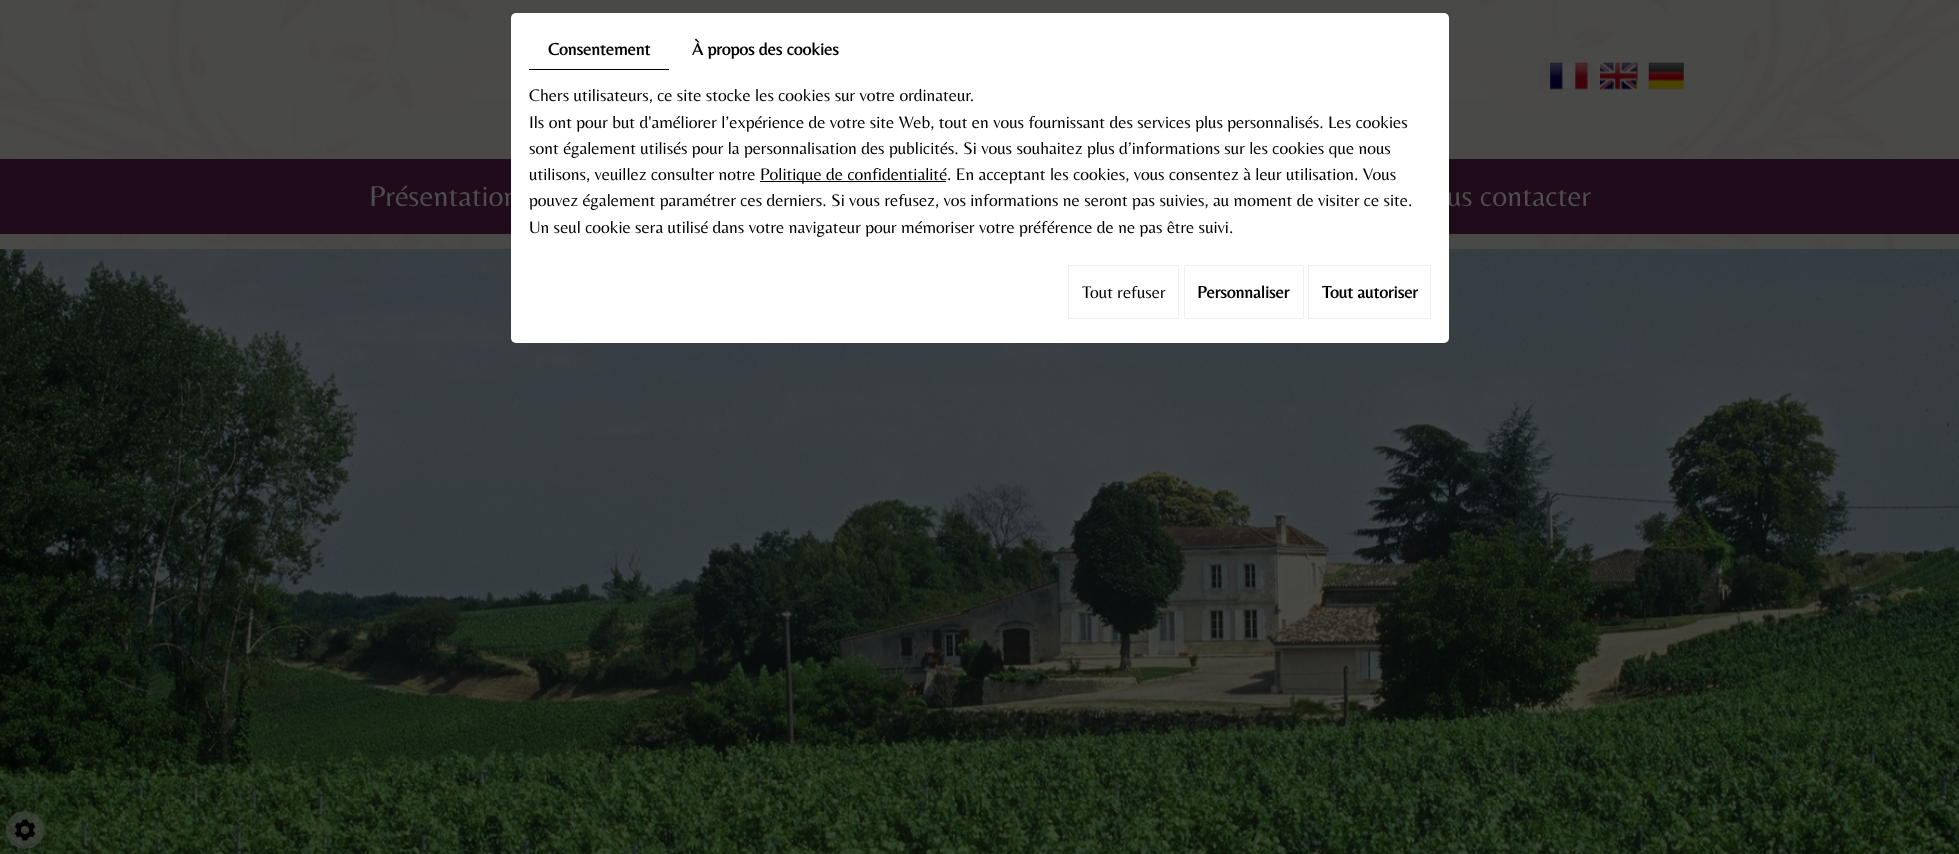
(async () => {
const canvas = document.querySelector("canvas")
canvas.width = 1959
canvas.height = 854
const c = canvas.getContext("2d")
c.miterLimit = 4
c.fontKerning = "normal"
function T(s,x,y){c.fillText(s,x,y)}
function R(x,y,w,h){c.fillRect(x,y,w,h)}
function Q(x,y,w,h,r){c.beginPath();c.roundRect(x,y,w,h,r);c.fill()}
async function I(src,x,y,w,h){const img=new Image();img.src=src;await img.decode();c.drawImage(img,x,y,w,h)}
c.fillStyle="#fff"
R(0,0,1959,854)
await I("1.png",0,0,1959,249)
c.fillStyle="#200b1b"
R(0,159,1959,75)
c.font="30px Belleza"
c.fillStyle="#4d4d4d"
T("Présentation",369,206)
T("us contacter",1447,206)
await I("5.png",0,249,1959,605)
c.fillStyle="#fff"
Q(511,13,938,330,5)
c.fillStyle="#000"
R(529,69,140,1)
c.font="bold 17.5px Belleza"
T("Consentement",548,55)
T("À propos des cookies",692,55)
c.font="17.5px Belleza"
T("Chers utilisateurs, ce site stocke les cookies sur votre ordinateur.",529,101)
T("Ils ont pour but d'améliorer l’expérience de votre site Web, tout en vous fournissant des services plus personnalisés. Les cookies",529,128)
T("sont également utilisés pour la personnalisation des publicités. Si vous souhaitez plus d’informations sur les cookies que nous",529,154)
T("utilisons, veuillez consulter notre",529,180)
R(760,181,186,1)
T("Politique de confidentialité. En acceptant les cookies, vous consentez à leur utilisation. Vous",760,180)
T("pouvez également paramétrer ces derniers. Si vous refusez, vos informations ne seront pas suivies, au moment de visiter ce site.",529,206)
T("Un seul cookie sera utilisé dans votre navigateur pour mémoriser votre préférence de ne pas être suivi.",529,233)
c.strokeStyle="#f0f0f0"
c.strokeRect(1068.5,265.5,110,53)
T("Tout refuser",1082,298)
c.strokeRect(1184.5,265.5,119,53)
c.font="bold 17.5px Belleza"
T("Personnaliser",1197,298)
c.strokeRect(1308.5,265.5,122,53)
T("Tout autoriser",1322,298)
await I("2.png",1550,62,38,28)
await I("3.png",1600,62,38,28)
await I("4.png",1648,62,36,28)
c.fillStyle="#4d4d4d8a"
c.beginPath()
c.arc(25,830,19,0,7)
c.fill()
await I("6.png",14,819,22,22)
})()
